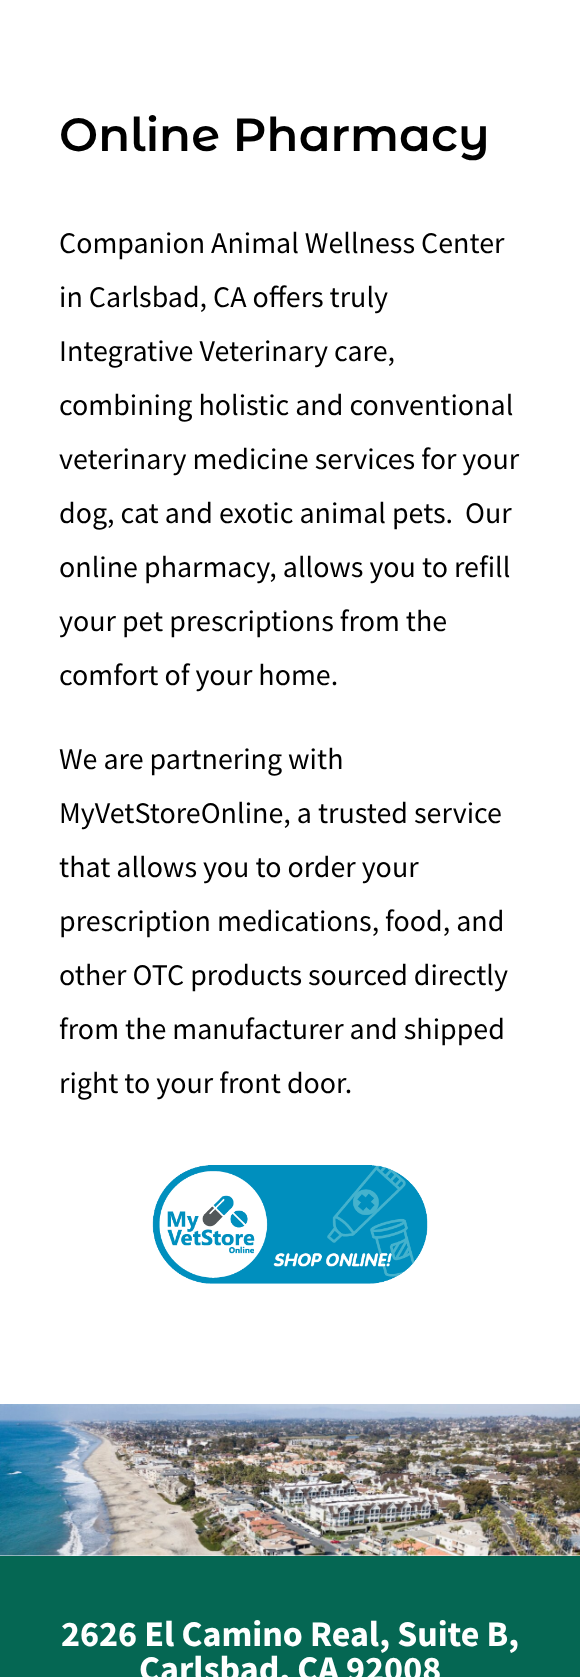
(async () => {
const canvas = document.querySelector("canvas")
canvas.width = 580
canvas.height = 1677
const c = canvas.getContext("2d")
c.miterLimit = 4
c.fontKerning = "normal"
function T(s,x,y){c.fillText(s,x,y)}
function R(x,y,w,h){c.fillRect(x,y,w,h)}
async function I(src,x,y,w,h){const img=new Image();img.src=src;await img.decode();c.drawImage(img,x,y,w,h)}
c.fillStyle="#fff"
R(0,0,580,1677)
c.font="600 46.5px Montserrat Alternates"
c.fillStyle="#000"
T("Online Pharmacy",59,151)
c.font="30px Source Sans Pro"
T("Companion Animal Wellness Center",59,253)
T("in Carlsbad, CA offers truly",59,307)
T("Integrative Veterinary care,",59,361)
T("combining holistic and conventional",59,415)
T("veterinary medicine services for your",59,469)
T("dog, cat and exotic animal pets.  Our",59,523)
T("online pharmacy, allows you to refill",59,577)
T("your pet prescriptions from the",59,631)
T("comfort of your home.",59,685)
T("We are partnering with",59,769)
T("MyVetStoreOnline, a trusted service",59,823)
T("that allows you to order your",59,877)
T("prescription medications, food, and",59,931)
T("other OTC products sourced directly",59,985)
T("from the manufacturer and shipped",59,1039)
T("right to your front door.",59,1093)
await I("1.png",152,1165,276,119)
await I("2.png",0,1404,580,152)
c.fillStyle="#056753"
R(0,1556,580,121)
c.font="bold 36px Source Sans Pro"
c.fillStyle="#fff"
T("2626 El Camino Real, Suite B,",61,1646)
T("Carlsbad, CA 92008",139,1681)
})()
